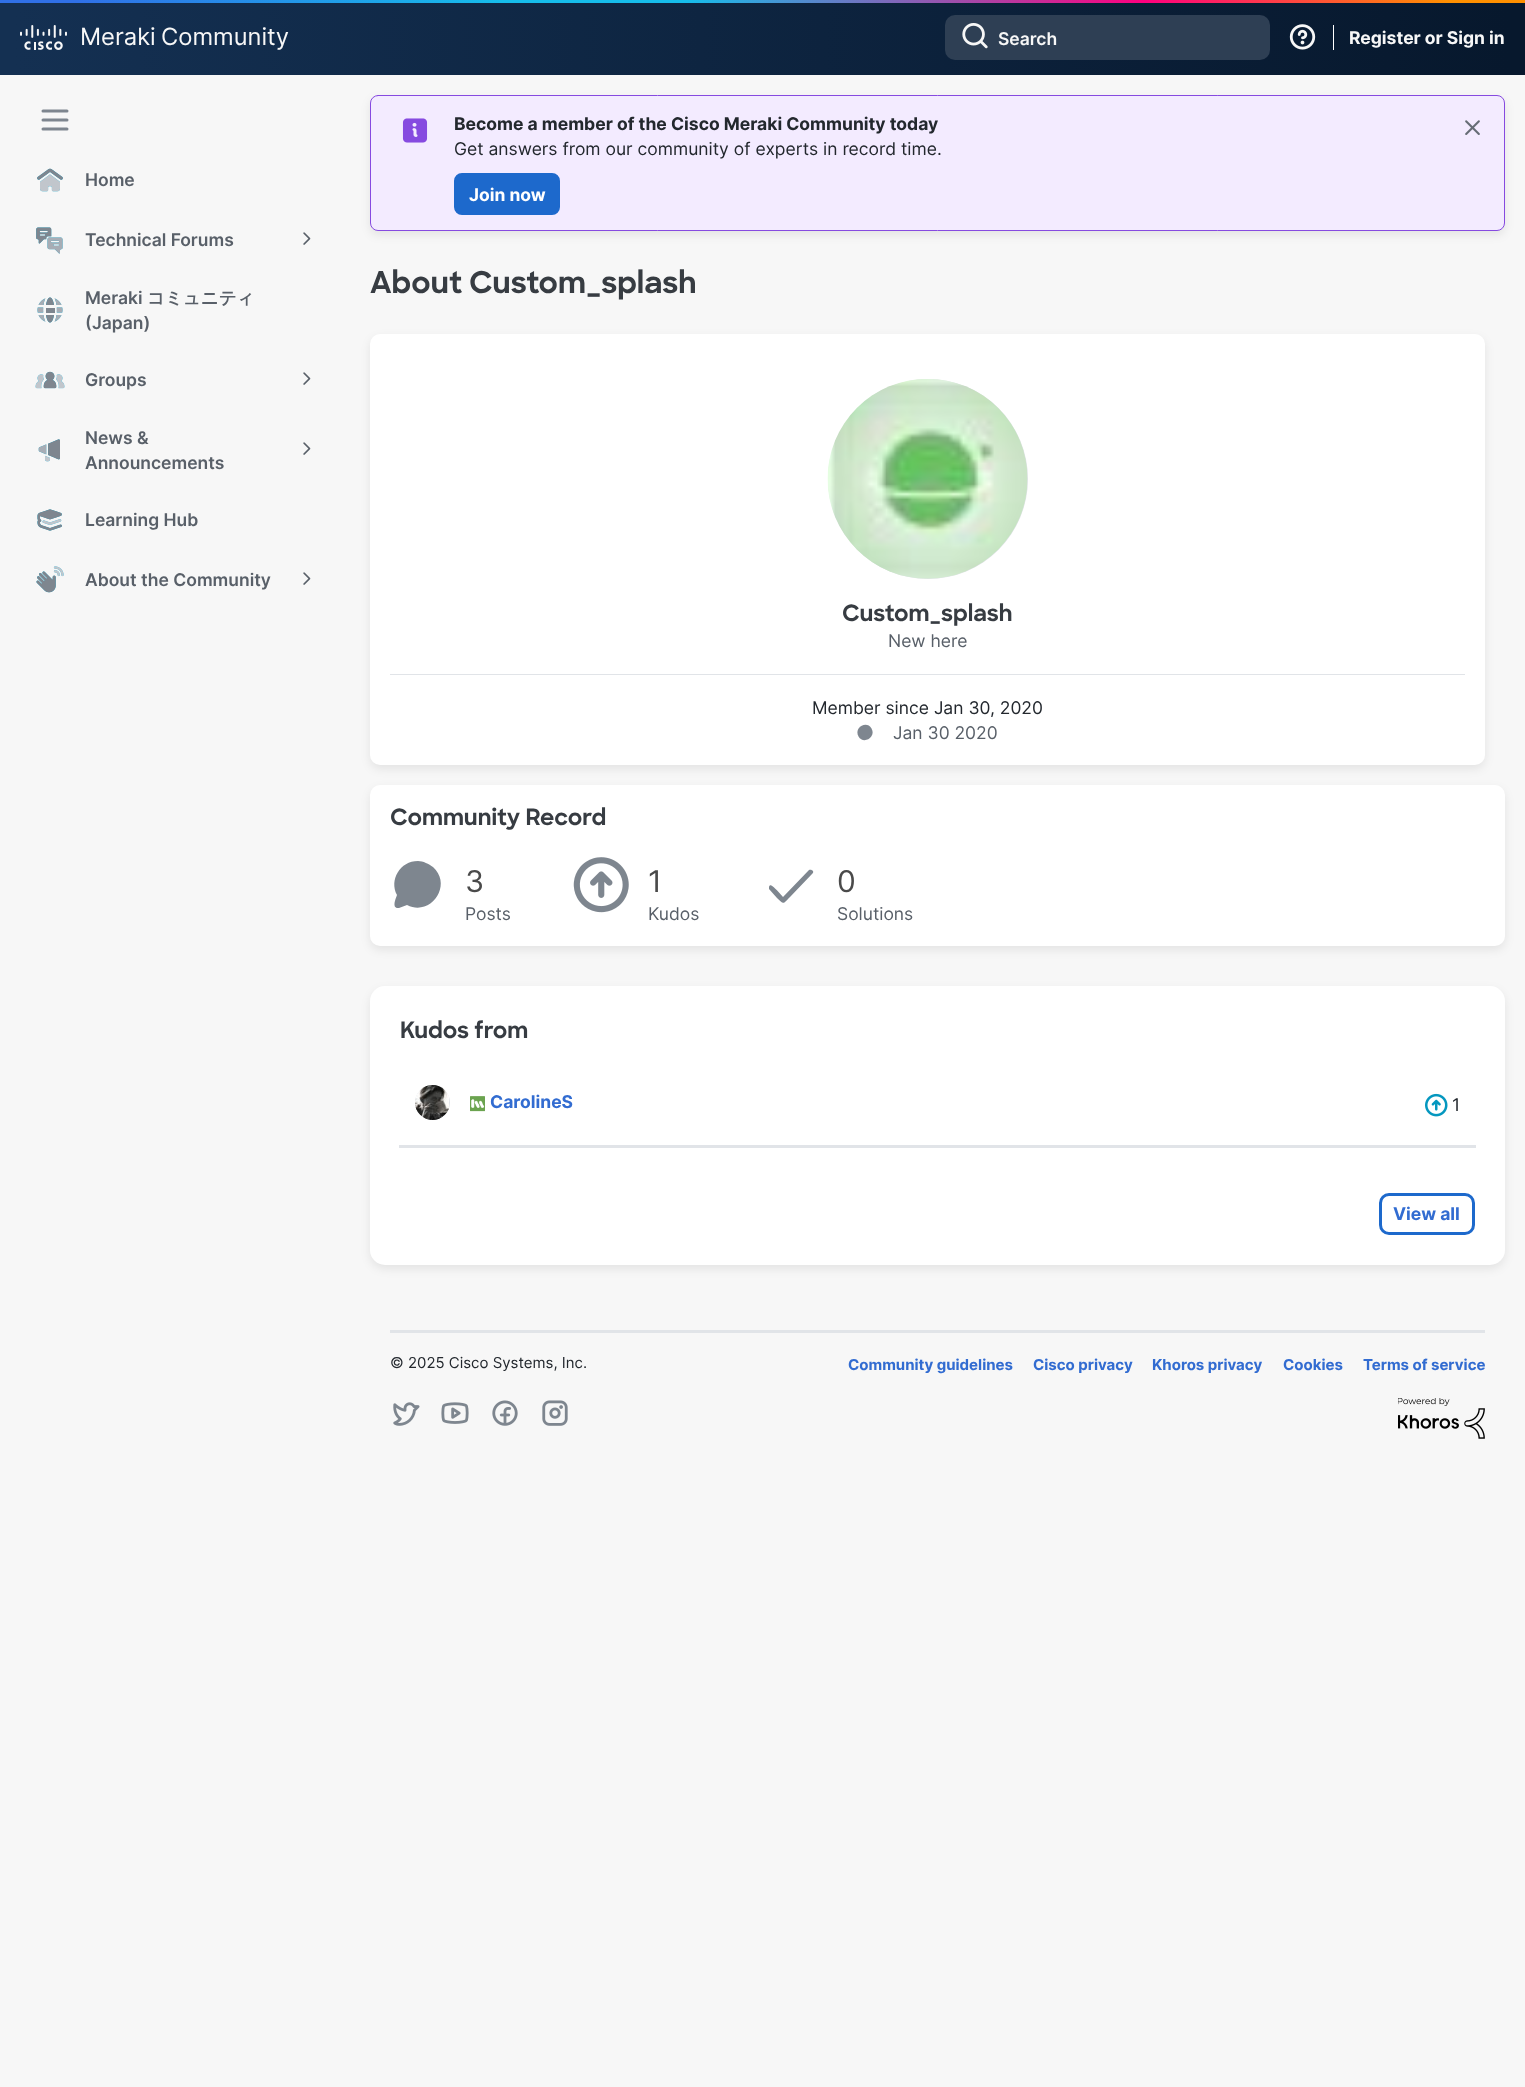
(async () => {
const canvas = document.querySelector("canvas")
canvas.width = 1525
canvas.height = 2087
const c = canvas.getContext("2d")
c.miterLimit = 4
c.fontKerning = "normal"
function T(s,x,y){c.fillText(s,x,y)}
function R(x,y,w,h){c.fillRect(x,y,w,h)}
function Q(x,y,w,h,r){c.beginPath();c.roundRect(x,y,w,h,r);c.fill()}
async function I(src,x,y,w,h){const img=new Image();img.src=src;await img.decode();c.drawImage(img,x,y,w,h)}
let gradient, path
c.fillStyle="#f7f7f7"
R(0,0,1525,2087)
gradient = c.createLinearGradient(0,38,1525,37)
gradient.addColorStop(.01,"#143052")
gradient.addColorStop(.99,"#07182d")
c.fillStyle = gradient
R(0,3,1525,72)
gradient = c.createLinearGradient(0,1.3,1525,1.2)
gradient.addColorStop(.05,"#3070e7")
gradient.addColorStop(.33,"#16bdeb")
gradient.addColorStop(.45,"#16bdeb")
gradient.addColorStop(.75,"#ff007f")
gradient.addColorStop(.95,"#ff9000")
c.fillStyle = gradient
R(0,0,1525,3)
await I("1.png",20,25,47,25)
c.font="23.75px Inter"
c.fillStyle="#f7f7f7"
T("Meraki",80,45)
T("Community",161,45)
c.fillStyle="#2e3f54"
Q(945,15,325,45,10)
await I("2.png",962,23,26,26)
c.font="600 17.5px Inter"
c.fillStyle="#f7f7f7"
T("Search",998,45)
await I("3.png",1289,24,27,26)
c.fillStyle="#fff"
R(1333,25,1,25)
c.font="bold 17.5px Inter"
c.fillStyle="#f7f7f7"
T("Register or Sign in",1349,44)
path = new Path2D("M43 111h24m-24 9h24m-24 9h24")
c.strokeStyle="#7e868f"
c.lineWidth=3
c.lineCap="round"
c.stroke(path)
await I("4.png",37,168,26,24)
await I("5.png",37,168,26,24)
c.font="600 17.5px Inter"
c.fillStyle="#596069"
T("Home",85,186)
await I("6.png",36,227,27,27)
await I("7.png",36,227,27,27)
T("Technical Forums",85,246)
await I("8.png",303,232,8,13)
await I("9.png",37,297,26,26)
await I("10.png",37,297,26,26)
T("Meraki",85,304)
c.font="bold 17.5px WenQuanYi Zen Hei"
T("コミュニティ",147,304)
c.font="600 17.5px Inter"
T("(Japan)",85,329)
await I("11.png",35,371,30,18)
await I("12.png",35,371,30,18)
T("Groups",85,386)
await I("8.png",303,372,8,13)
await I("13.png",38,439,22,23)
await I("14.png",38,439,22,23)
T("News &",85,444)
T("Announcements",85,469)
await I("8.png",303,442,8,13)
await I("15.png",37,509,25,22)
await I("16.png",37,509,25,22)
T("Learning Hub",85,526)
await I("17.png",36,566,28,27)
await I("18.png",36,566,28,27)
T("About the Community",85,586)
await I("8.png",303,572,8,13)
c.fillStyle="#00000014"
c.filter="blur(5px)"
c.beginPath()
c.roundRect(370,99,1135,136,8)
c.fill()
c.filter="none"
c.fillStyle="#f3ebff"
c.beginPath()
c.roundRect(370.5,95.5,1134,135,7.5)
c.fill()
c.strokeStyle="#864ae0"
c.lineWidth=1
c.stroke()
await I("19.png",402,118,26,25)
c.font="bold 17.5px Inter"
c.fillStyle="#23282e"
T("Become a member of the Cisco Meraki Community today",454,130)
c.font="17.5px Inter"
T("Get answers from our community of experts in record time.",454,155)
c.fillStyle="#1d69cc"
c.beginPath()
c.roundRect(455.5,174.5,103,39,6.5)
c.fill()
c.strokeStyle="#1d69cc"
c.lineWidth=3
c.stroke()
c.font="bold 17.5px Inter"
c.fillStyle="#fff"
T("Join now",469,201)
await I("20.png",1465,120,15,15)
c.font="bold 30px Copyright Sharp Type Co"
c.fillStyle="#373c42"
T("About Custom_splash",370,293)
c.fillStyle="#00000014"
c.filter="blur(5px)"
c.beginPath()
c.roundRect(370,338,1115,431,10)
c.fill()
c.filter="none"
c.fillStyle="#fff"
Q(370,334,1115,431,10)
c.fillStyle="#e1e4e8"
R(390,674,1075,1)
c.filter="blur(0.5px)"
c.beginPath()
c.roundRect(828,379,200,200,100)
c.fill()
c.filter="none"
await I("21.png",827,379,201,200)
c.font="bold 22.5px Copyright Sharp Type Co"
c.fillStyle="#373c42"
T("Custom_splash",842,621)
c.font="17.5px Inter"
c.fillStyle="#596069"
T("New here",888,647)
c.fillStyle="#23282e"
T("Member since Jan 30, 2020",812,714)
c.fillStyle="#7e868f"
path = new Path2D("M871.5 728.5c5 8.5-8 16.5-13 8c-5-8.5 8-16.5 13-8z")
c.fill(path)
c.fillStyle="#596069"
T("Jan 30 2020",893,739)
c.fillStyle="#00000014"
c.filter="blur(5px)"
c.beginPath()
c.roundRect(370,789,1135,161,10)
c.fill()
c.filter="none"
c.fillStyle="#fff"
Q(370,785,1135,161,10)
c.font="bold 22.5px Copyright Sharp Type Co"
c.fillStyle="#373c42"
T("Community Record",390,825)
c.fillStyle="#7e868f"
path = new Path2D("M418 861c-18 0-29 19-21 34c-1 3-6 14 2 13l8-3c24 12 46-20 26-38c-4-3-10-6-15-6z")
c.fill(path)
c.font="30px Inter"
c.fillStyle="#4a4a4a"
T("3",465,892)
c.font="17.5px Inter"
c.fillStyle="#596069"
T("Posts",465,920)
await I("22.png",573,857,56,56)
c.font="30px Inter"
c.fillStyle="#4a4a4a"
T("1",648,892)
c.font="17.5px Inter"
c.fillStyle="#596069"
T("Kudos",648,920)
c.fillStyle="#7e868f"
path = new Path2D("M812 874l-22 23c-7 7-6 8-13 1l-8-9v-2c1-5 6 1 14 10l26-27c3-1 6 2 3 4z")
c.fill(path)
c.font="30px Inter"
c.fillStyle="#4a4a4a"
T("0",837,892)
c.font="17.5px Inter"
c.fillStyle="#596069"
T("Solutions",837,920)
c.fillStyle="#00000014"
c.filter="blur(5px)"
c.beginPath()
c.roundRect(370,990,1135,279,15)
c.fill()
c.filter="none"
c.fillStyle="#fff"
Q(370,986,1135,279,15)
c.font="bold 22.5px Copyright Sharp Type Co"
c.fillStyle="#373c42"
T("Kudos from",400,1038)
c.fillStyle="#e1e4e8"
R(399,1145,1077,3)
c.filter="blur(0.5px)"
c.beginPath()
c.roundRect(415,1085,35,35,17.5)
c.fill()
c.filter="none"
await I("23.png",415,1085,34,35)
await I("24.png",470,1096,15,16)
c.font="bold 17.5px Inter"
c.fillStyle="#326cd1"
T("CarolineS",490,1108)
await I("25.png",1425,1093,23,24)
c.font="17.5px Inter"
c.fillStyle="#23282e"
T("1",1452,1111)
c.beginPath()
c.roundRect(1380.5,1194.5,93,39,8.5)
c.stroke()
c.font="bold 17.5px Inter"
c.fillStyle="#326cd1"
T("View all",1393,1220)
c.fillStyle="#e1e4e8"
R(390,1330,1095,3)
c.font="15px Inter"
c.fillStyle="#23282e"
T("© 2025 Cisco Systems, Inc.",390,1368)
c.font="bold 15px Inter"
c.fillStyle="#326cd1"
T("Community guidelines",848,1370)
T("Cisco privacy",1033,1370)
T("Khoros privacy",1152,1370)
T("Cookies",1283,1370)
T("Terms of service",1363,1370)
await I("26.png",393,1402,27,24)
await I("27.png",441,1402,28,22)
await I("28.png",492,1400,26,26)
await I("29.png",542,1400,26,26)
await I("30.png",1398,1398,87,41)
})()
